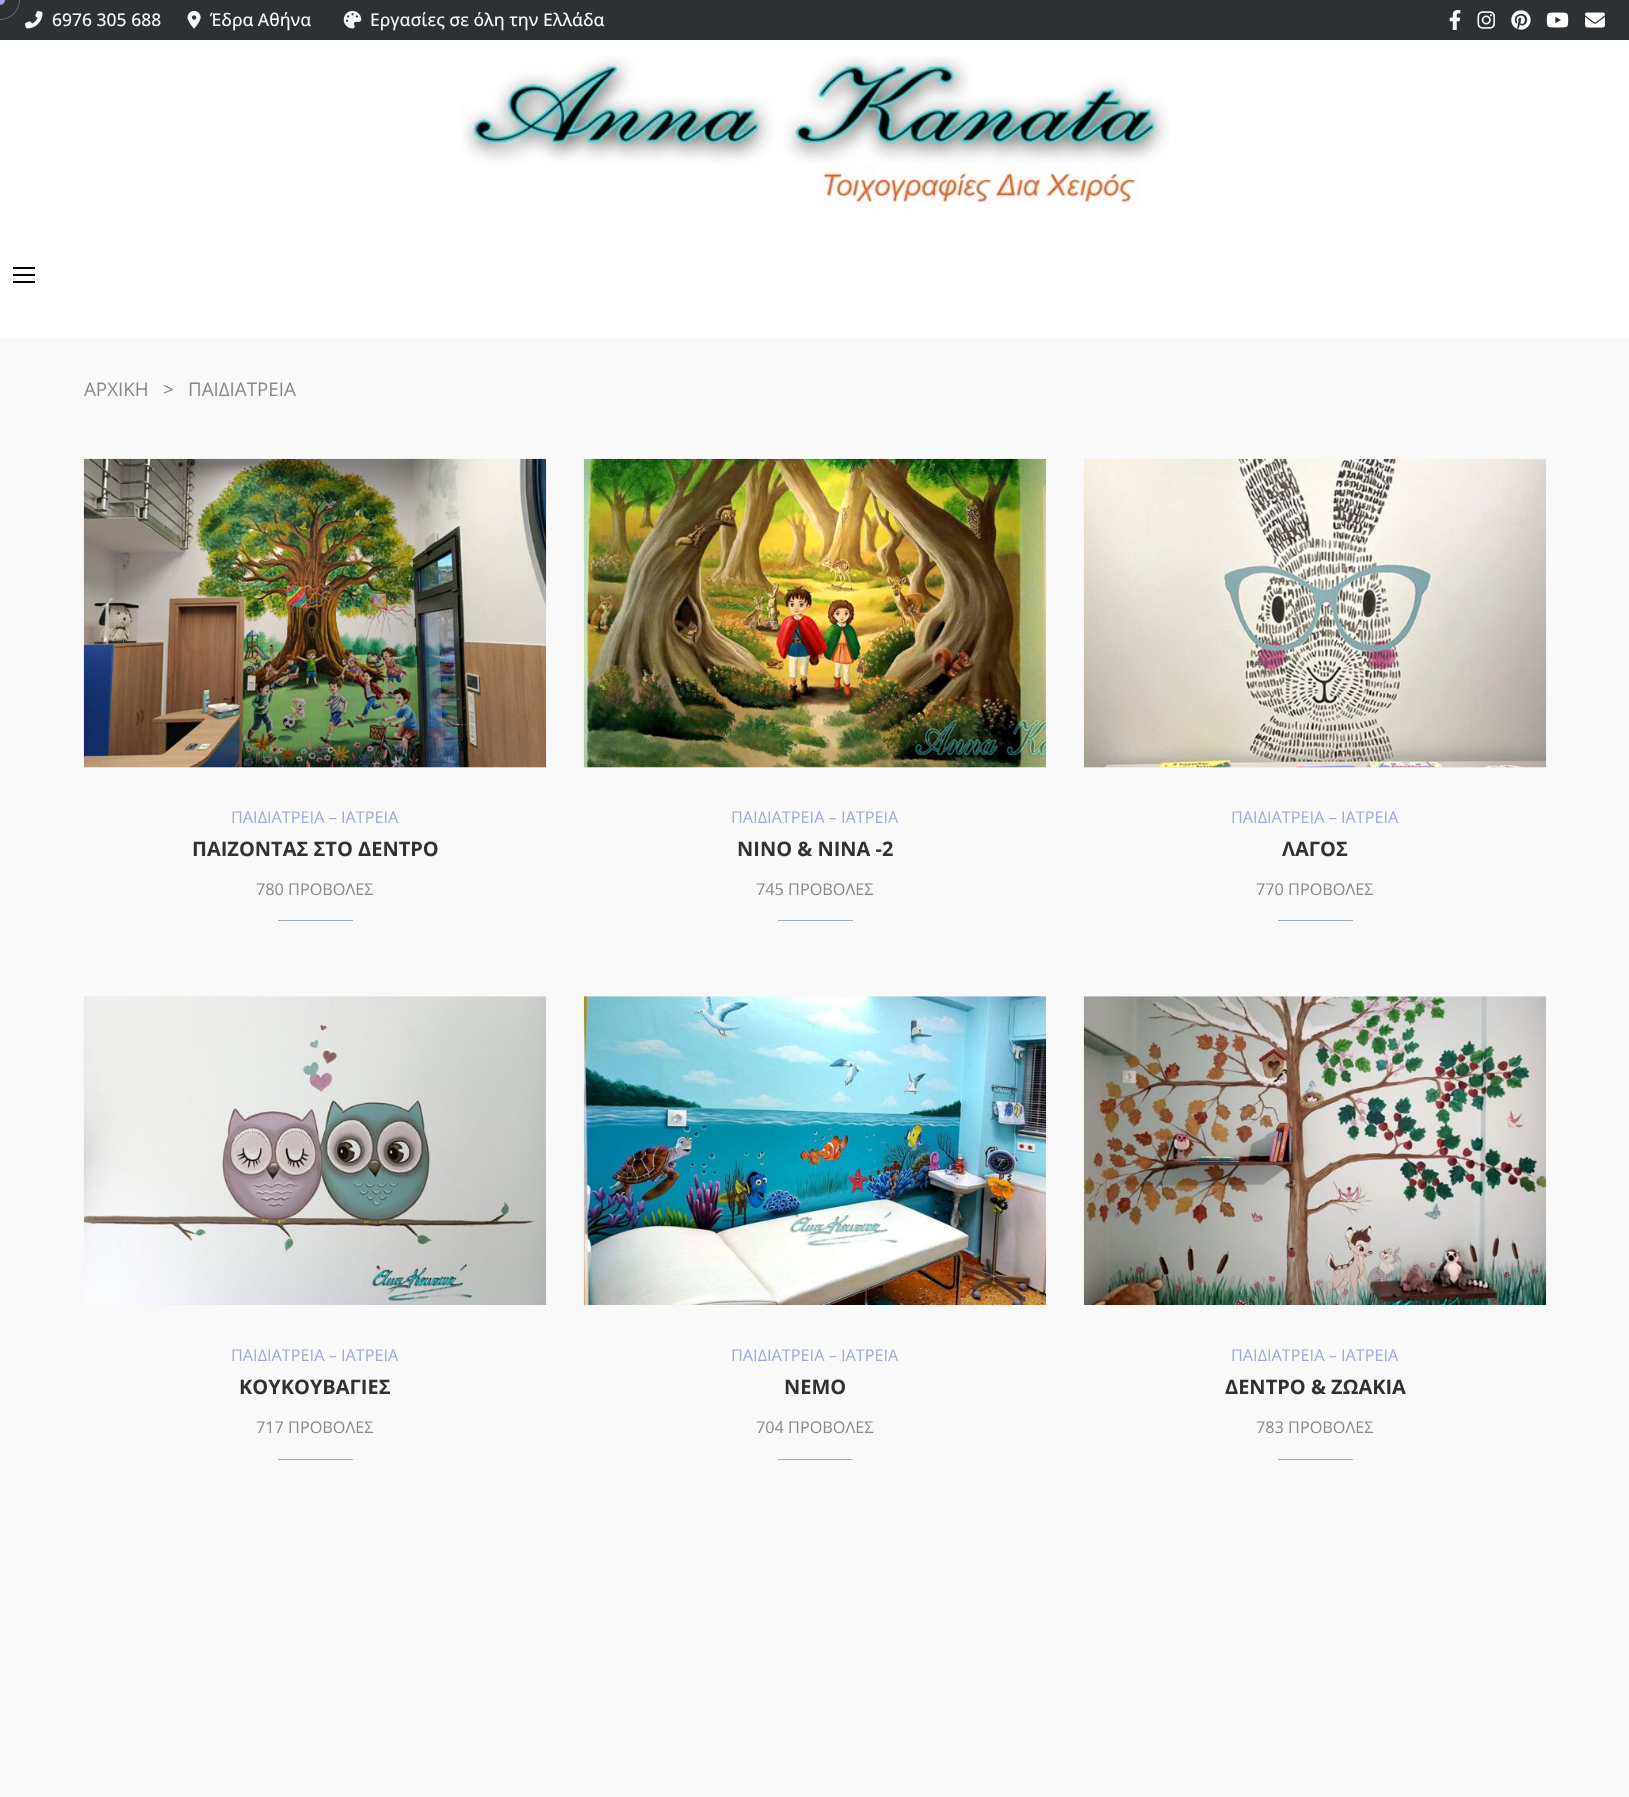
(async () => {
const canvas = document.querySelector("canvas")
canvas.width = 1629
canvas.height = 1797
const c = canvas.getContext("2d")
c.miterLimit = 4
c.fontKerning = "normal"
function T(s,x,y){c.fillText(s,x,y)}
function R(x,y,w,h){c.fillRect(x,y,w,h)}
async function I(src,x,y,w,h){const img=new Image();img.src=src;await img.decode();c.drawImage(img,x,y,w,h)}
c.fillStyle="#f9f9f9"
R(0,0,1629,1797)
c.fillStyle="#2e3133"
R(0,0,1629,40)
c.beginPath()
c.arc(0,0,19.5,0,7)
c.strokeStyle="#676d87"
c.stroke()
c.fillStyle="#9fa8da"
c.beginPath()
c.arc(0,0,5,0,7)
c.fill()
await I("1.png",25,10,18,19)
c.font="500 17.5px Open Sans"
c.fillStyle="#f9f9f9"
T("6976 305 688",52,26)
await I("2.png",187,10,14,19)
T("Έδρα Αθήνα",210,26)
await I("3.png",343,10,19,19)
T("Εργασίες σε όλη την Ελλάδα",370,26)
await I("4.png",1449,10,12,20)
await I("5.png",1477,11,18,18)
await I("6.png",1511,10,20,20)
await I("7.png",1546,12,23,16)
await I("8.png",1585,12,20,16)
c.fillStyle="#fff"
R(0,40,1629,298)
c.fillStyle="#000"
R(13,267,22,2)
R(13,274,22,2)
R(13,281,22,2)
await I("9.png",460,56,709,150)
c.font="18.75px Open Sans"
c.fillStyle="#888"
T("ΑΡΧΙΚΗ",84,396)
T(">",163,396)
T("ΠΑΙΔΙΑΤΡΕΙΑ",188,396)
c.fillStyle="#f5f5f5"
R(84,767,462,1)
await I("10.png",83,458,464,310)
c.font="16.25px Open Sans"
c.fillStyle="#9fa8da"
T("ΠΑΙΔΙΑΤΡΕΙΑ – ΙΑΤΡΕΙΑ",231,823)
c.font="bold 20px Open Sans"
c.fillStyle="#313131"
T("ΠΑΙΖΟΝΤΑΣ ΣΤΟ ΔΕΝΤΡΟ",192,856)
c.font="16.25px Open Sans"
c.fillStyle="#888"
T("780 ΠΡΟΒΟΛΕΣ",256,895)
c.fillStyle="#9fa8da"
R(278,920,75,1)
c.fillStyle="#f5f5f5"
R(584,767,462,1)
await I("11.png",583,458,464,310)
c.fillStyle="#9fa8da"
T("ΠΑΙΔΙΑΤΡΕΙΑ – ΙΑΤΡΕΙΑ",731,823)
c.font="bold 20px Open Sans"
c.fillStyle="#313131"
T("ΝΙΝΟ & ΝΙΝΑ -2",737,856)
c.font="16.25px Open Sans"
c.fillStyle="#888"
T("745 ΠΡΟΒΟΛΕΣ",756,895)
c.fillStyle="#9fa8da"
R(778,920,75,1)
c.fillStyle="#f5f5f5"
R(1084,767,462,1)
await I("12.png",1083,458,464,310)
c.fillStyle="#9fa8da"
T("ΠΑΙΔΙΑΤΡΕΙΑ – ΙΑΤΡΕΙΑ",1231,823)
c.font="bold 20px Open Sans"
c.fillStyle="#313131"
T("ΛΑΓΟΣ",1282,856)
c.font="16.25px Open Sans"
c.fillStyle="#888"
T("770 ΠΡΟΒΟΛΕΣ",1256,895)
c.fillStyle="#9fa8da"
R(1278,920,75,1)
c.fillStyle="#f5f5f5"
R(84,996,462,1)
await I("13.png",83,996,464,309)
c.fillStyle="#9fa8da"
T("ΠΑΙΔΙΑΤΡΕΙΑ – ΙΑΤΡΕΙΑ",231,1361)
c.font="bold 20px Open Sans"
c.fillStyle="#313131"
T("ΚΟΥΚΟΥΒΑΓΙΕΣ",239,1394)
c.font="16.25px Open Sans"
c.fillStyle="#888"
T("717 ΠΡΟΒΟΛΕΣ",256,1433)
c.fillStyle="#9fa8da"
R(278,1459,75,1)
c.fillStyle="#f5f5f5"
R(584,996,462,1)
await I("14.png",583,996,464,309)
c.fillStyle="#9fa8da"
T("ΠΑΙΔΙΑΤΡΕΙΑ – ΙΑΤΡΕΙΑ",731,1361)
c.font="bold 20px Open Sans"
c.fillStyle="#313131"
T("ΝΕΜΟ",784,1394)
c.font="16.25px Open Sans"
c.fillStyle="#888"
T("704 ΠΡΟΒΟΛΕΣ",756,1433)
c.fillStyle="#9fa8da"
R(778,1459,75,1)
c.fillStyle="#f5f5f5"
R(1084,996,462,1)
await I("15.png",1083,996,464,309)
c.fillStyle="#9fa8da"
T("ΠΑΙΔΙΑΤΡΕΙΑ – ΙΑΤΡΕΙΑ",1231,1361)
c.font="bold 20px Open Sans"
c.fillStyle="#313131"
T("ΔΕΝΤΡΟ & ΖΩΑΚΙΑ",1225,1394)
c.font="16.25px Open Sans"
c.fillStyle="#888"
T("783 ΠΡΟΒΟΛΕΣ",1256,1433)
c.fillStyle="#9fa8da"
R(1278,1459,75,1)
})()
